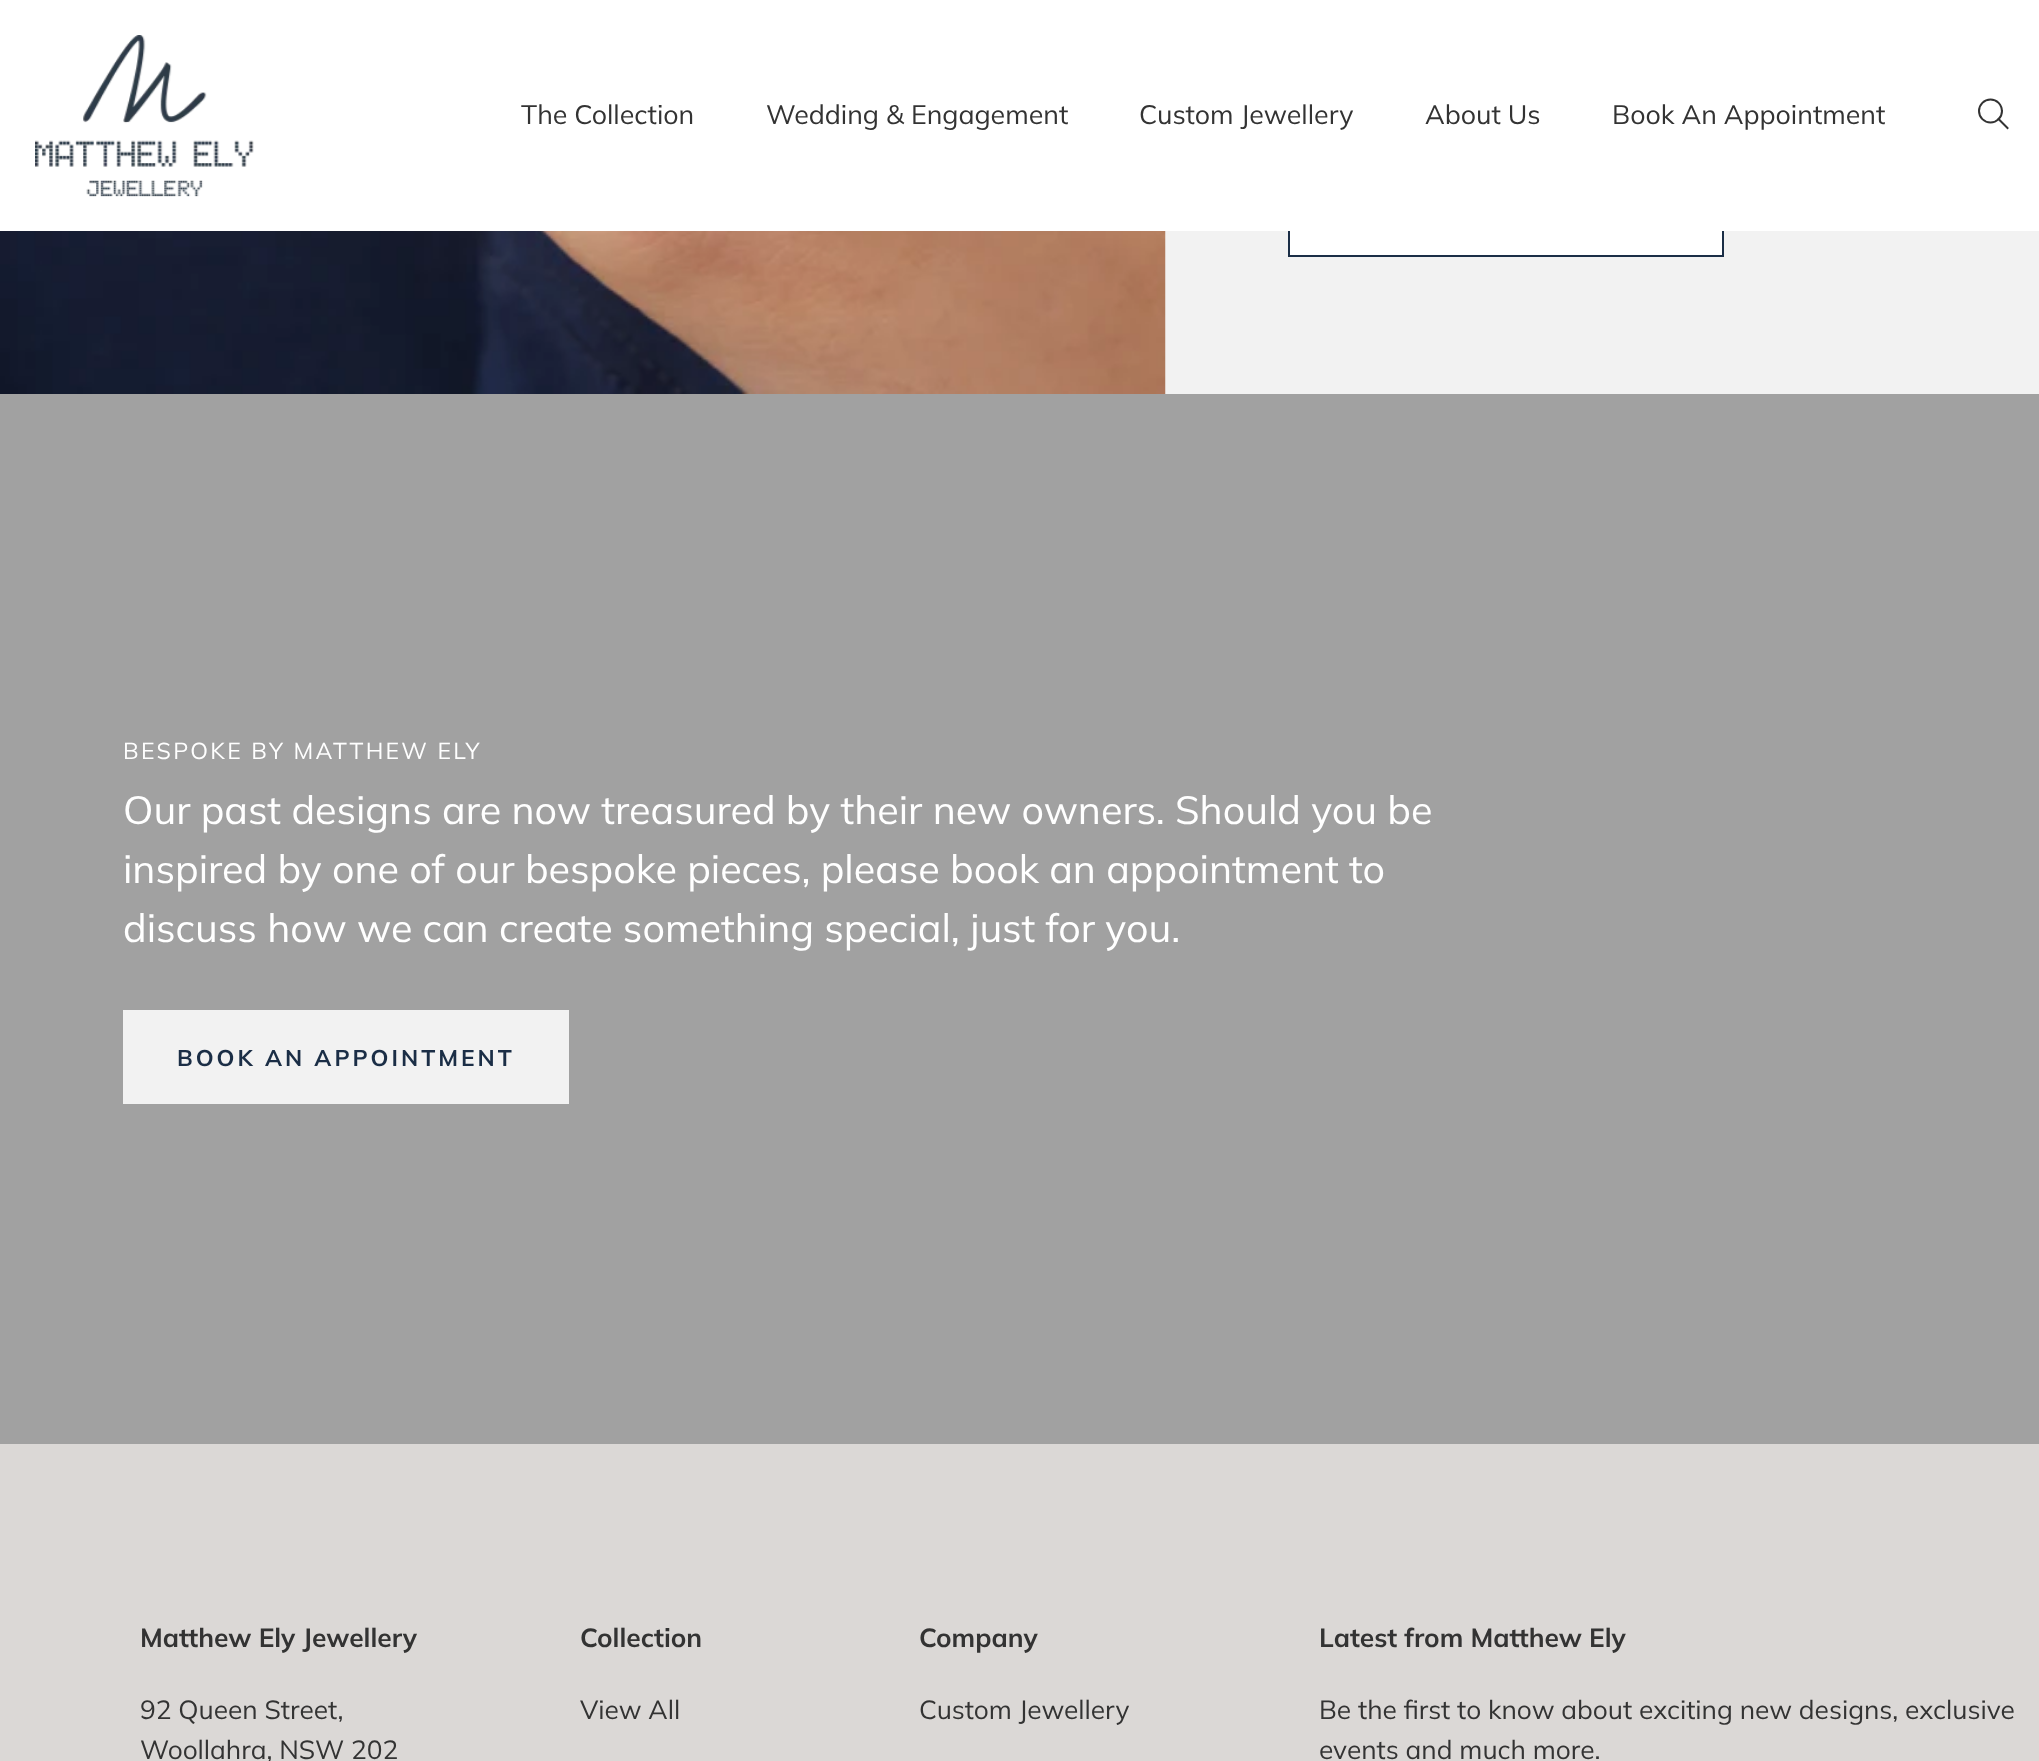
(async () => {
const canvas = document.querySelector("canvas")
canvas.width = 2039
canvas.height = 1761
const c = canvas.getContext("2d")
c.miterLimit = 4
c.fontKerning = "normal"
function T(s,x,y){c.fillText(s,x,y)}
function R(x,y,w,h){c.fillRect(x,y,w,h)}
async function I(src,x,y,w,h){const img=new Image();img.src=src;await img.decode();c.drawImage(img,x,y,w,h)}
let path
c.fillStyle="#f2f2f2"
R(0,0,2039,1761)
c.fillStyle="#fff"
R(1290,231,432,24)
c.strokeStyle="#1b2e46"
c.lineWidth=2
c.strokeRect(1289,164,434,92)
R(0,0,2039,231)
await I("1.png",35,35,219,162)
c.font="26.75px Muli"
c.fillStyle="#333"
T("The Collection",521,124)
T("Wedding & Engagement",766,124)
T("Custom Jewellery",1139,124)
T("About Us",1425,124)
T("Book An Appointment",1612,124)
path = new Path2D("M2007.5 128l-9-9")
c.strokeStyle="#333"
c.lineCap="square"
c.stroke(path)
c.beginPath()
c.arc(1990.5,111,11.5,0,7)
c.stroke()
await I("2.png",0,231,1166,163)
c.fillStyle="#a1a1a1"
R(0,394,2039,1050)
c.letterSpacing="2.3px"
c.font="23px Muli"
c.fillStyle="#fff"
T("BESPOKE BY MATTHEW ELY",123,759)
c.letterSpacing="0px"
c.font="39.4px Muli"
T("Our past designs are now treasured by their new owners. Should you be",123,824)
T("inspired by one of our bespoke pieces, please book an appointment to",123,883)
T("discuss how we can create something special, just for you.",123,942)
c.fillStyle="#f2f2f2"
R(123,1010,446,94)
c.letterSpacing="3px"
c.font="bold 22.75px Muli"
c.fillStyle="#1b2e46"
T("BOOK AN APPOINTMENT",177,1066)
c.fillStyle="#dbd8d6"
R(0,1444,2039,317)
c.letterSpacing="0px"
c.font="bold 26.25px Muli"
c.fillStyle="#333"
T("Matthew Ely Jewellery",140,1647)
c.font="26.25px Muli"
T("92 Queen Street,",140,1719)
T("Woollahra, NSW 202",140,1759)
c.font="bold 26.25px Muli"
T("Collection",580,1647)
c.font="26.25px Muli"
T("View All",580,1719)
c.font="bold 26.25px Muli"
T("Company",919,1647)
c.font="26.25px Muli"
T("Custom Jewellery",919,1719)
c.font="bold 26.25px Muli"
T("Latest from Matthew Ely",1319,1647)
c.font="26.25px Muli"
T("Be the first to know about exciting new designs, exclusive",1319,1719)
T("events and much more.",1319,1759)
})()
